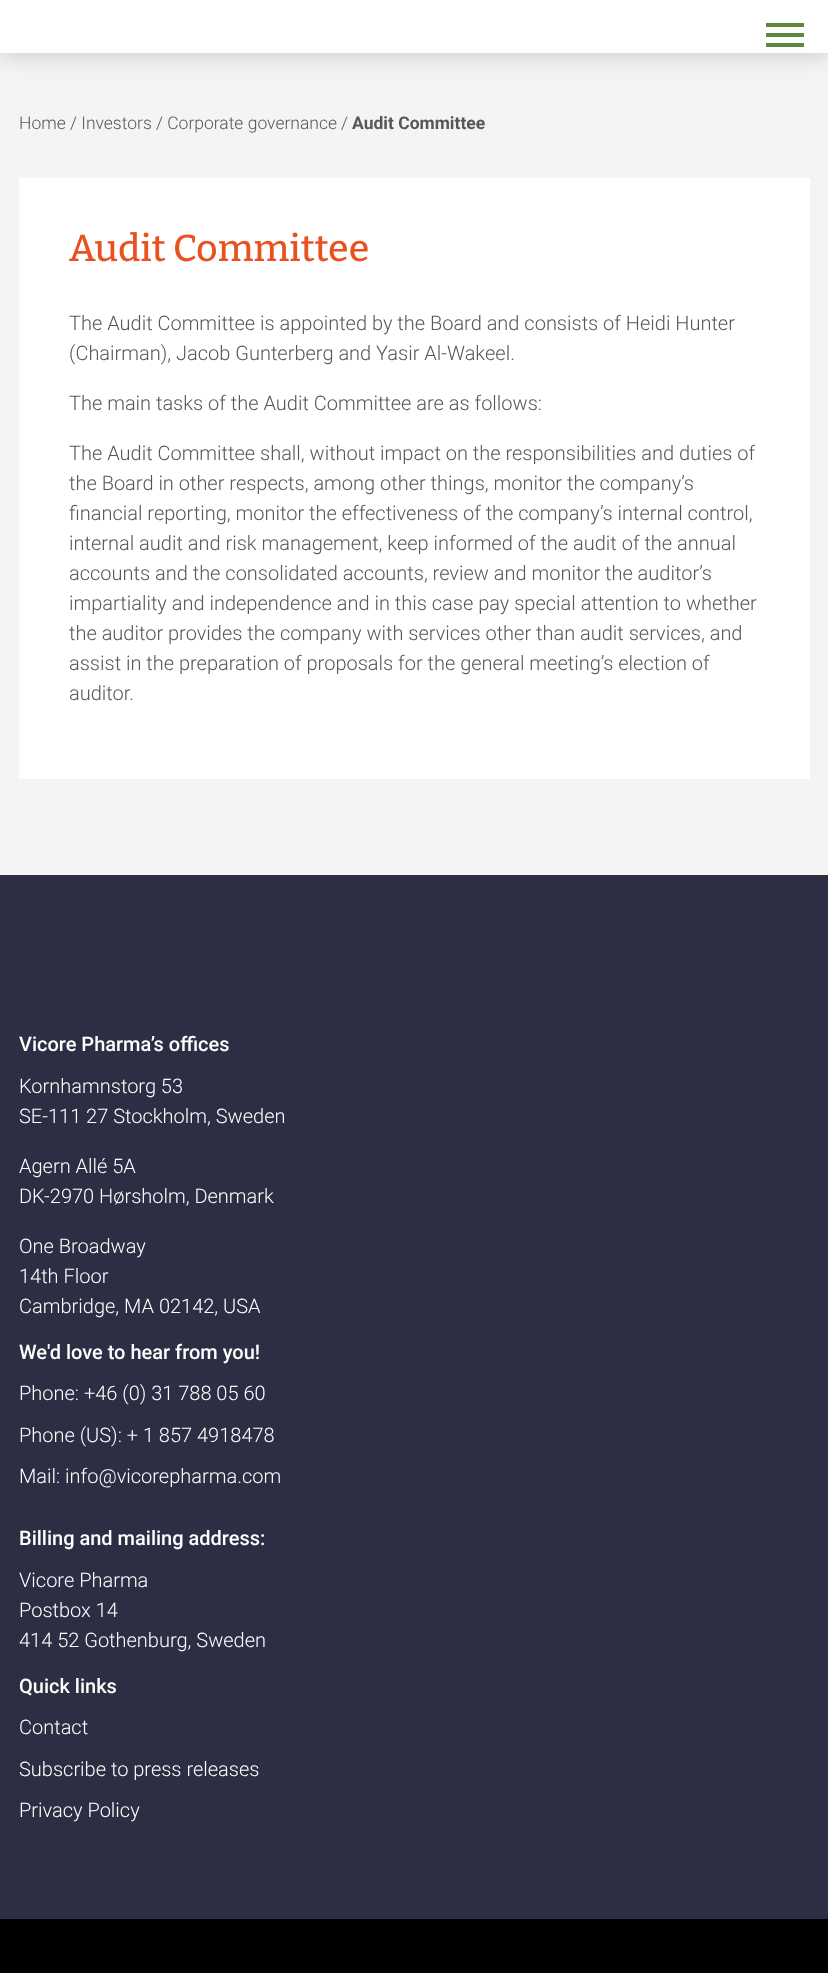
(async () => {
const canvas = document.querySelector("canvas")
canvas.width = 828
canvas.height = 1973
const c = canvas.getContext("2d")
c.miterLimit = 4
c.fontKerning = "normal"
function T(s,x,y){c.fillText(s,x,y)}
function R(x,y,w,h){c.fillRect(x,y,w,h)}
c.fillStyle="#000"
R(0,0,828,1973)
c.fillStyle="#f4f4f4"
R(0,53,828,822)
c.fillStyle="#00000033"
c.filter="blur(12.5px)"
c.beginPath()
c.rect(0,0,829,53)
c.fill()
c.filter="none"
c.fillStyle="#fff"
R(0,0,828,53)
c.fillStyle="#5b883a"
R(766,23,38,4)
R(766,33,38,4)
R(766,43,38,4)
c.font="300 17.5px Roboto"
c.fillStyle="#54585a"
T("Home",19,129)
T("/ Investors",70,129)
T("/ Corporate governance",156,129)
T("/",341,129)
c.font="bold 17.5px Roboto"
T("Audit Committee",352,129)
c.fillStyle="#fff"
R(19,178,791,601)
c.font="500 37.5px Bitter"
c.fillStyle="#e85221"
T("Audit Committee",69,261)
c.font="300 20px Roboto"
c.fillStyle="#54585a"
T("The Audit Committee is appointed by the Board and consists of Heidi Hunter",69,330)
T("(Chairman), Jacob Gunterberg and Yasir Al-Wakeel.",69,360)
T("The main tasks of the Audit Committee are as follows:",69,410)
T("The Audit Committee shall, without impact on the responsibilities and duties of",69,460)
T("the Board in other respects, among other things, monitor the company’s",69,490)
T("financial reporting, monitor the effectiveness of the company’s internal control,",69,520)
T("internal audit and risk management, keep informed of the audit of the annual",69,550)
T("accounts and the consolidated accounts, review and monitor the auditor’s",69,580)
T("impartiality and independence and in this case pay special attention to whether",69,610)
T("the auditor provides the company with services other than audit services, and",69,640)
T("assist in the preparation of proposals for the general meeting’s election of",69,670)
T("auditor.",69,700)
c.fillStyle="#2c2e43"
R(0,875,828,1044)
c.font="500 20px Roboto"
c.fillStyle="#fff"
T("Vicore Pharma’s offices",19,1051)
c.font="300 20px Roboto"
T("Kornhamnstorg 53",19,1093)
T("SE-111 27 Stockholm, Sweden",19,1123)
T("Agern Allé 5A",19,1173)
T("DK-2970 Hørsholm, Denmark",19,1203)
T("One Broadway",19,1253)
T("14th Floor",19,1283)
T("Cambridge, MA 02142, USA",19,1313)
c.font="500 20px Roboto"
T("We'd love to hear from you!",19,1359)
c.font="300 20px Roboto"
T("Phone: +46 (0) 31 788 05 60",19,1400)
T("Phone (US): + 1 857 4918478",19,1442)
T("Mail: info@vicorepharma.com",19,1483)
c.font="500 20px Roboto"
T("Billing and mailing address:",19,1545)
c.font="300 20px Roboto"
T("Vicore Pharma",19,1587)
T("Postbox 14",19,1617)
T("414 52 Gothenburg, Sweden",19,1647)
c.font="500 20px Roboto"
T("Quick links",19,1693)
c.font="300 20px Roboto"
T("Contact",19,1734)
T("Subscribe to press releases",19,1776)
T("Privacy Policy",19,1817)
})()
